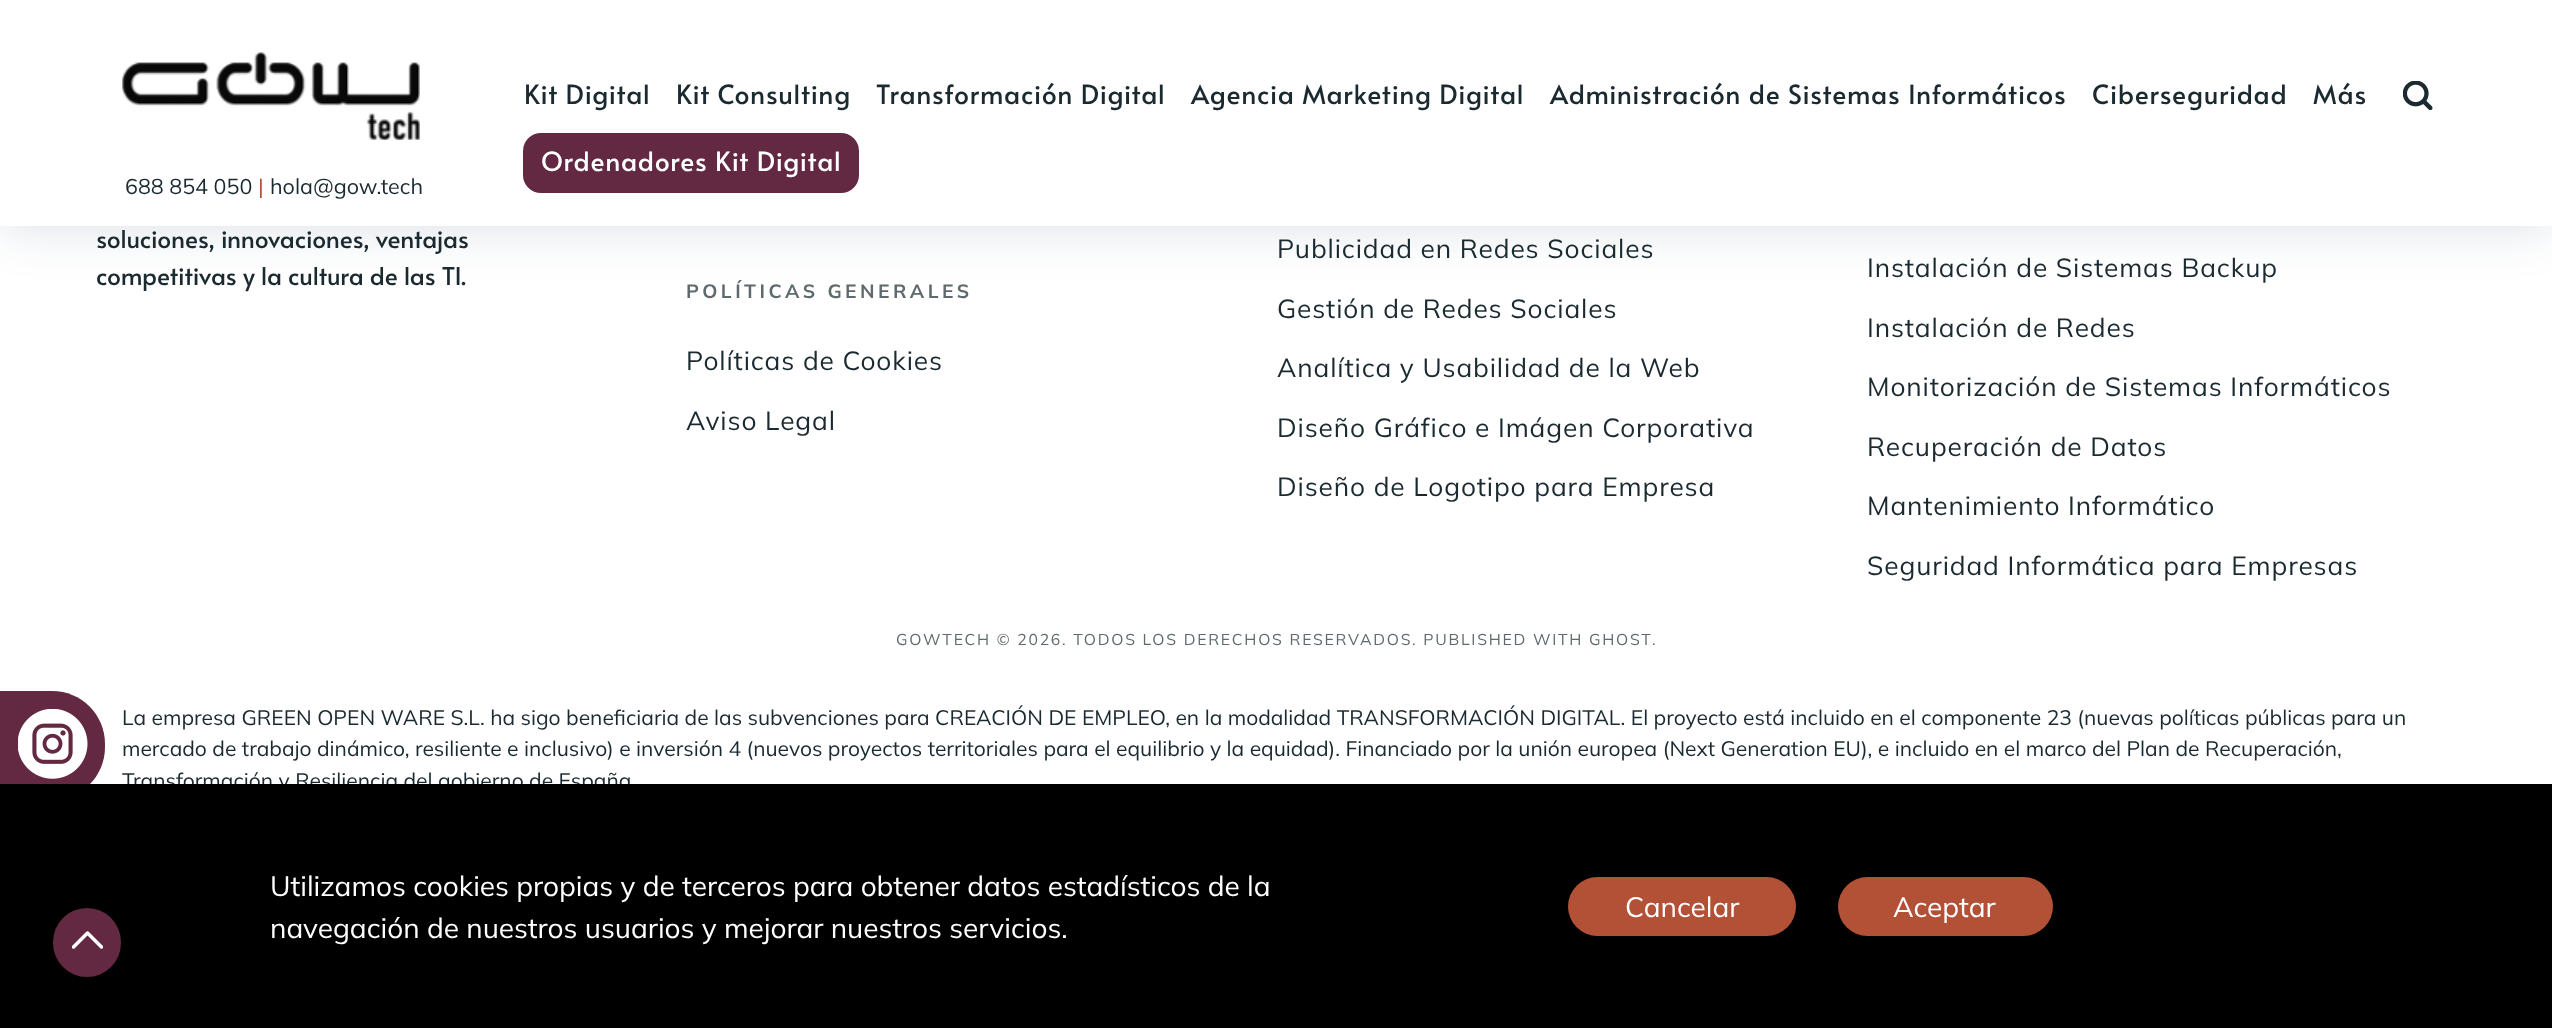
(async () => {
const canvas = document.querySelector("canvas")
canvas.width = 2552
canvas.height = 1028
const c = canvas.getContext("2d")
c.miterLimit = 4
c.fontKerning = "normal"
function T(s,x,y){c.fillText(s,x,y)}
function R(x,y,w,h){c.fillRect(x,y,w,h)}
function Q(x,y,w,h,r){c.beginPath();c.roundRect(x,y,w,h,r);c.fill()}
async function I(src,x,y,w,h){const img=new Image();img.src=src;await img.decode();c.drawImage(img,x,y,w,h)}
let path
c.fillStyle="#fff"
R(0,0,2552,1028)
c.fillStyle="#0a2b5326"
c.filter="blur(26px)"
c.beginPath()
c.rect(0,0,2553,226)
c.fill()
c.filter="none"
c.fillStyle="#fff"
R(0,0,2552,226)
await I("1.png",122,52,298,88)
c.letterSpacing="0.9px"
c.font="26.4px Alata"
c.fillStyle="#1a2a30"
T("Kit Digital",524,104)
c.fillStyle="#632943"
Q(523,133,336,60,18)
c.fillStyle="#fff"
T("Ordenadores Kit Digital",541,171)
c.fillStyle="#1a2a30"
T("Transformación Digital",876,104)
T("Administración de Sistemas Informáticos",1550,104)
T("Más",2313,104)
T("Kit Consulting",676,104)
T("Agencia Marketing Digital",1191,104)
T("Ciberseguridad",2092,104)
await I("2.png",2403,81,30,29)
c.letterSpacing="0px"
c.font="21.5px Mulish"
T("688 854 050",125,194)
c.fillStyle="#b35137"
T("|",258,194)
c.fillStyle="#1a2a30"
T("hola@gow.tech",270,194)
c.font="24.5px Alata"
T("soluciones, innovaciones, ventajas",96,248)
T("competitivas y la cultura de las TI.",96,285)
c.letterSpacing="3.5px"
c.font="bold 19.25px Mulish"
c.fillStyle="#5f6a6e"
T("POLÍTICAS GENERALES",686,298)
c.letterSpacing="0.9px"
c.font="26.25px Mulish"
c.fillStyle="#1a2a30"
T("Políticas de Cookies",686,370)
T("Aviso Legal",686,430)
T("Publicidad en Redes Sociales",1277,258)
T("Gestión de Redes Sociales",1277,318)
T("Analítica y Usabilidad de la Web",1277,377)
T("Diseño Gráfico e Imágen Corporativa",1277,437)
T("Diseño de Logotipo para Empresa",1277,496)
T("Instalación de Sistemas Backup",1867,277)
T("Instalación de Redes",1867,337)
T("Monitorización de Sistemas Informáticos",1867,396)
T("Recuperación de Datos",1867,456)
T("Mantenimiento Informático",1867,515)
T("Seguridad Informática para Empresas",1867,575)
c.letterSpacing="1.75px"
c.font="15.75px Mulish"
c.fillStyle="#5f6a6e"
T("GOWTECH © 2026. TODOS LOS DERECHOS RESERVADOS. PUBLISHED WITH GHOST",896,645)
T(".",1652,645)
c.letterSpacing="0px"
c.font="21px Mulish"
c.fillStyle="#1a2a30"
T("La empresa GREEN OPEN WARE S.L. ha sigo beneficiaria de las subvenciones para CREACIÓN DE EMPLEO, en la modalidad TRANSFORMACIÓN DIGITAL. El proyecto está incluido en el componente 23 (nuevas políticas públicas para un",122,725)
T("mercado de trabajo dinámico, resiliente e inclusivo) e inversión 4 (nuevos proyectos territoriales para el equilibrio y la equidad). Financiado por la unión europea (Next Generation EU), e incluido en el marco del Plan de Recuperación,",122,756)
T("Transformación y Resiliencia del gobierno de España",122,788)
c.fillStyle="#632943"
path = new Path2D("M-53 691h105c29.5 0 53 23.5 53 53v3c0 29.5-23.5 53-53 53h-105z")
c.fill(path)
await I("3.png",18,709,70,70)
c.fillStyle="#000"
R(0,784,2552,244)
c.fillStyle="#632943"
Q(53,908,68,69,34)
c.save()
c.beginPath()
c.rect(72,931,31,18)
c.clip()
path = new Path2D("M73.5 947l14-14l14 14")
c.strokeStyle="#fff"
c.lineWidth=3.5
c.lineCap="round"
c.lineJoin="round"
c.stroke(path)
c.restore()
c.font="28px Mulish"
c.fillStyle="#fff"
T("Utilizamos cookies propias y de terceros para obtener datos estadísticos de la",270,896)
T("navegación de nuestros usuarios y mejorar nuestros servicios.",270,938)
c.fillStyle="#b35137"
Q(1568,877,228,59,29.5)
c.fillStyle="#fff"
T("Cancelar",1625,917)
c.fillStyle="#b35137"
Q(1838,877,215,59,29.5)
c.fillStyle="#fff"
T("Aceptar",1893,917)
})()
